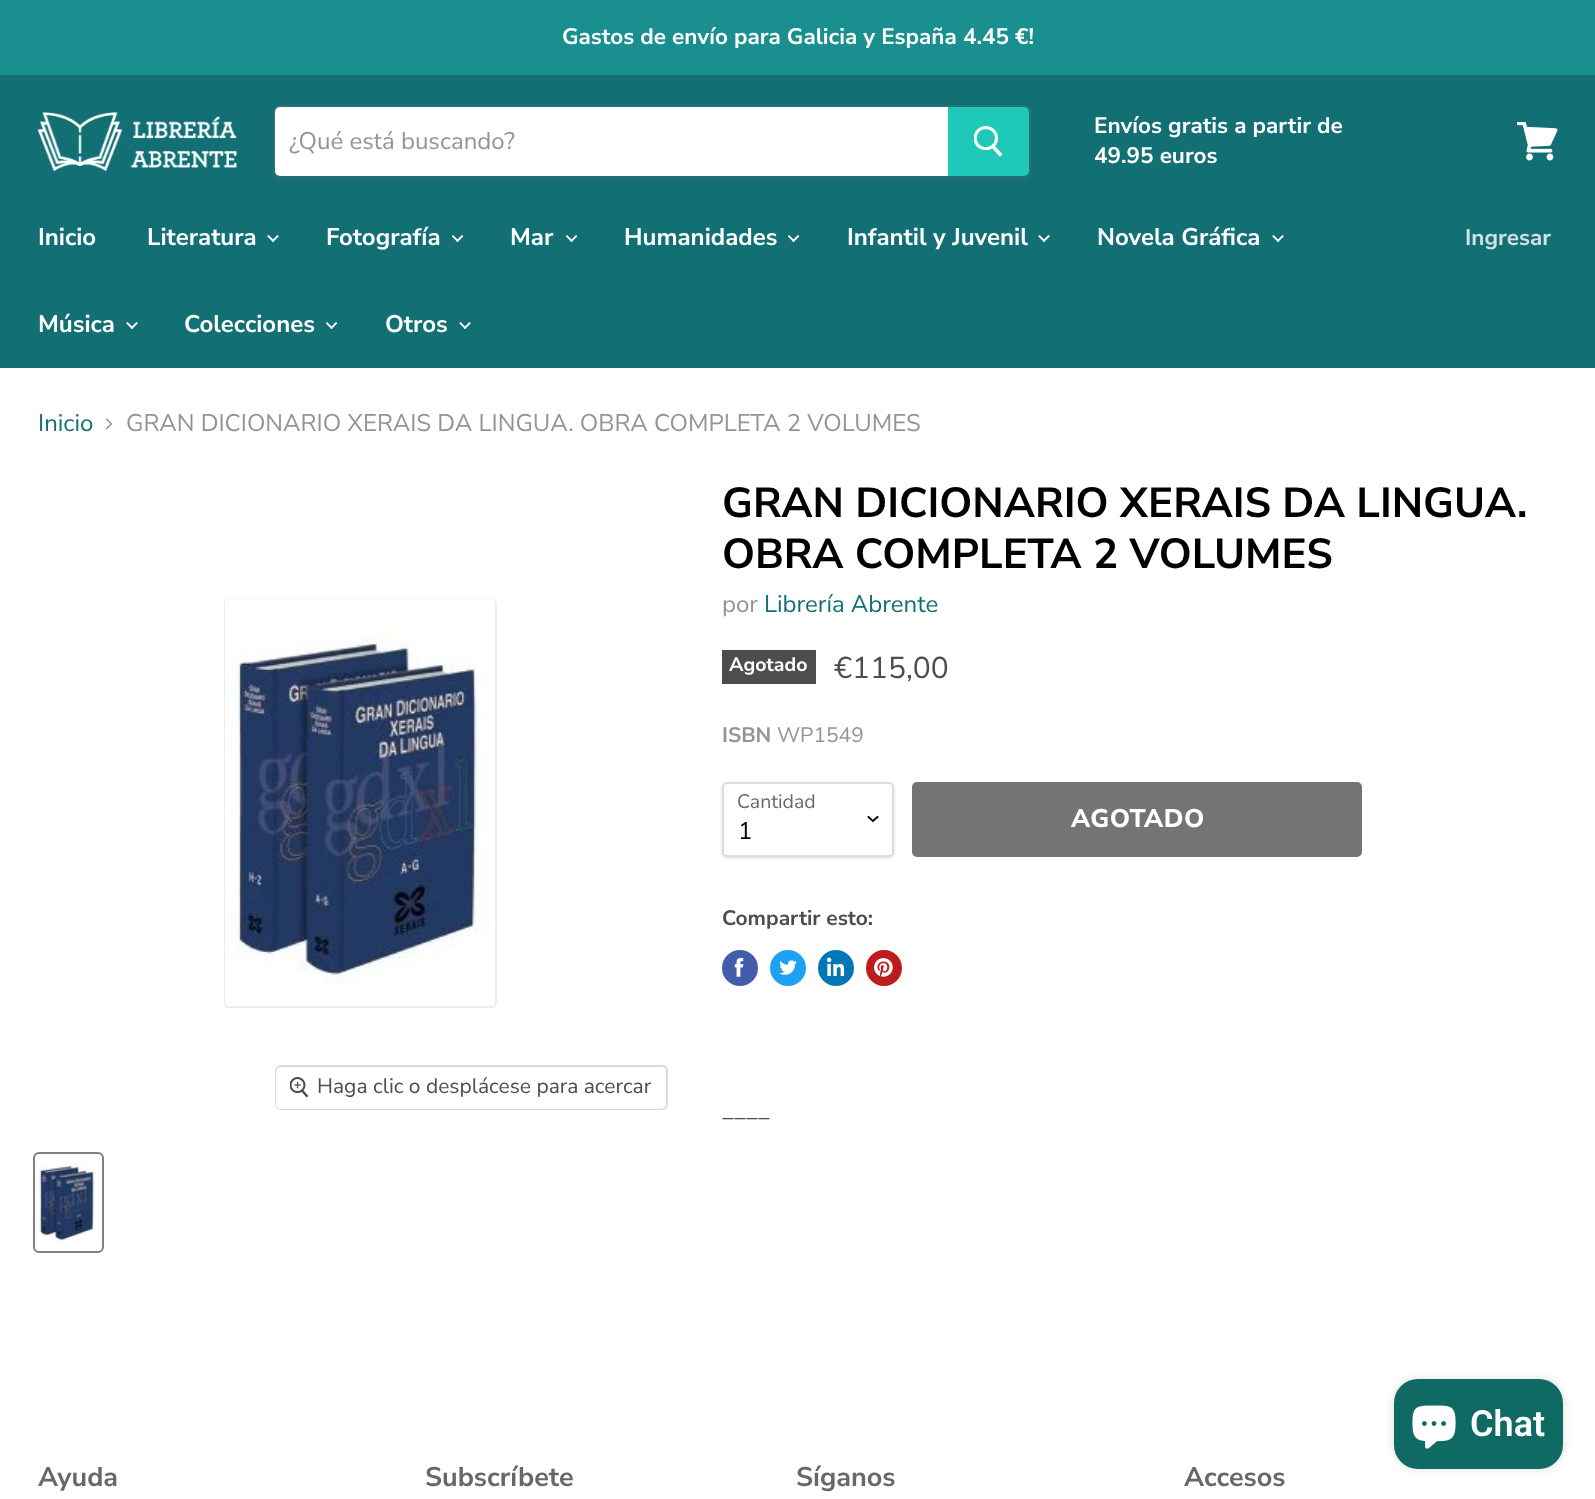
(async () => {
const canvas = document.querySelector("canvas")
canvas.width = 1595
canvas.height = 1499
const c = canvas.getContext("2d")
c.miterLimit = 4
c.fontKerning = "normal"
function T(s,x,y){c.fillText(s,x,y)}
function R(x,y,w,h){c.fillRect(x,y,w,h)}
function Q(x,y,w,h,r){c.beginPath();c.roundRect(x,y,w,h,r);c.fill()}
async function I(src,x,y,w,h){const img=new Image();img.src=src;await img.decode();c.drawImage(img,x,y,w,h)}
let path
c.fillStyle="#fff"
R(0,0,1595,1499)
c.fillStyle="#198f8f"
R(0,0,1595,75)
c.font="bold 22.5px Nunito Sans"
c.fillStyle="#fff"
T("Gastos de envío para Galicia y España 4.45 €!",562,44)
c.fillStyle="#126f73"
R(0,75,1595,293)
await I("1.png",37,112,200,60)
c.save()
path = new Path2D("M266 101h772v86h-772zm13 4h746c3.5 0 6 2.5 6 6v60c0 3.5-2.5 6-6 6h-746c-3.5 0-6-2.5-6-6v-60c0-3.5 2.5-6 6-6z")
c.clip(path,"evenodd")
c.fillStyle="#8080801c"
c.filter="blur(2px)"
c.beginPath()
c.roundRect(273,108,758,72,6)
c.fill()
c.filter="none"
c.restore()
c.beginPath()
c.roundRect(274,106,756,70,5)
c.strokeStyle="#80808033"
c.lineWidth=2
c.stroke()
c.fillStyle="#fff"
c.beginPath()
c.roundRect(275,107,673,69,[5,0,0,5])
c.fill()
c.font="24px Nunito Sans"
c.fillStyle="#949494"
T("¿Qué está buscando?",289,149)
c.fillStyle="#1fc9ba"
c.beginPath()
c.roundRect(949,108,79,67,[0,4,4,0])
c.fill()
c.strokeStyle="#1fc9ba"
c.stroke()
await I("2.png",974,126,29,31)
c.font="bold 22.5px Nunito Sans"
c.fillStyle="#fff"
T("Envíos gratis a partir de",1094,133)
T("49.95 euros",1094,163)
await I("3.png",1517,122,41,39)
c.font="bold 24px Nunito Sans"
T("Inicio",38,245)
T("Literatura",147,245)
await I("4.png",267,235,12,7)
T("Fotografía",326,245)
await I("5.png",452,235,12,7)
T("Mar",510,245)
await I("5.png",566,235,12,7)
T("Humanidades",624,245)
await I("5.png",788,235,12,7)
T("Infantil y Juvenil",847,245)
await I("4.png",1038,235,12,7)
T("Novela Gráfica",1097,245)
await I("4.png",1272,235,12,7)
T("Música",38,332)
await I("4.png",126,322,12,7)
T("Colecciones",184,332)
await I("5.png",326,322,12,7)
T("Otros",385,332)
await I("4.png",459,322,12,7)
c.font="bold 22.5px Nunito Sans"
c.fillStyle="#d0e2e3"
T("Ingresar",1465,245)
c.font="24px Nunito Sans"
c.fillStyle="#126f73"
T("Inicio",38,431)
await I("6.png",106,418,7,12)
c.fillStyle="#949494"
T("GRAN DICIONARIO XERAIS DA LINGUA. OBRA COMPLETA 2 VOLUMES",126,431)
c.beginPath()
c.roundRect(225,600,271,407,[2,5,5,2])
c.strokeStyle="#eee"
c.stroke()
await I("7.png",225,599,270,407)
c.beginPath()
c.roundRect(276,1066,391,43,5)
c.strokeStyle="#d9d9d9"
c.stroke()
c.fillStyle="#ffffffe6"
Q(276,1067,390,42,5)
await I("8.png",290,1077,19,21)
c.font="21px Nunito Sans"
c.fillStyle="#4d4d4d"
T("Haga clic o desplácese para acercar",317,1093)
c.beginPath()
c.roundRect(34,1153,69,99,5)
c.strokeStyle="#818181"
c.stroke()
await I("9.png",37,1163,58,80)
c.font="bold 42px Nunito Sans"
c.fillStyle="#000"
T("GRAN DICIONARIO XERAIS DA LINGUA.",722,517)
T("OBRA COMPLETA 2 VOLUMES",722,568)
c.font="24px Nunito Sans"
c.fillStyle="#949494"
T("por",722,612)
c.fillStyle="#126f73"
T("Librería Abrente",764,612)
c.fillStyle="#4d4d4d"
R(722,650,94,34)
c.font="bold 19.5px Nunito Sans"
c.fillStyle="#fff"
T("Agotado",729,671)
c.font="30px Nunito Sans"
c.fillStyle="#4d4d4d"
T("€115,00",834,678)
c.font="bold 21px Nunito Sans"
c.fillStyle="#949494"
T("ISBN",722,742)
c.font="21px Nunito Sans"
T("WP1549",777,742)
c.fillStyle="#00000026"
c.filter="blur(1.5px)"
c.beginPath()
c.roundRect(722,783,172,75,5)
c.fill()
c.filter="none"
c.fillStyle="#fff"
c.beginPath()
c.roundRect(723,783,170,73,4)
c.fill()
c.strokeStyle="#ddd"
c.stroke()
c.font="19.5px Nunito Sans"
c.fillStyle="#686868"
T("Cantidad",737,808)
path = new Path2D("M873 821l4.5-4m-4.5 4l-4.5-4")
c.strokeStyle="#000"
c.lineWidth=1.9
c.lineCap="square"
c.stroke(path)
c.font="24px Nunito Sans"
c.fillStyle="#000"
T("1",738,839)
c.fillStyle="#747474"
c.beginPath()
c.roundRect(913,783,448,73,4)
c.fill()
c.strokeStyle="#747474"
c.lineWidth=2
c.stroke()
c.letterSpacing="0.5px"
c.font="800 25.5px Nunito Sans"
c.fillStyle="#fff"
T("AGOTADO",1071,827)
c.letterSpacing="0px"
c.font="bold 21px Nunito Sans"
c.fillStyle="#4d4d4d"
T("Compartir esto:",722,925)
c.fillStyle="#425dab"
c.beginPath()
c.arc(740,968,18,0,7)
c.fill()
await I("10.png",734,958,10,19)
c.fillStyle="#1da1f2"
c.beginPath()
c.arc(788,968,18,0,7)
c.fill()
await I("11.png",779,960,18,15)
c.fillStyle="#0077b5"
c.beginPath()
c.arc(836,968,18,0,7)
c.fill()
await I("12.png",827,957,18,20)
c.fillStyle="#bd1c1c"
c.beginPath()
c.arc(884,968,18,0,7)
c.fill()
await I("13.png",874,958,19,19)
c.font="24px Nunito Sans"
c.fillStyle="#4d4d4d"
T("____",722,1118)
c.fillStyle="#00000026"
c.filter="blur(4px)"
c.beginPath()
c.roundRect(1394,1379,169,90,24)
c.fill()
c.filter="none"
c.fillStyle="#0e6a63"
Q(1394,1379,169,90,24)
await I("14.png",1412,1405,44,44)
c.font="600 36px Roboto"
c.fillStyle="#fff"
T("Chat",1470,1436)
c.font="bold 27px Nunito Sans"
c.fillStyle="#686868"
T("Ayuda",38,1486)
T("Subscríbete",425,1486)
T("Síganos",796,1486)
T("Accesos",1184,1486)
})()
